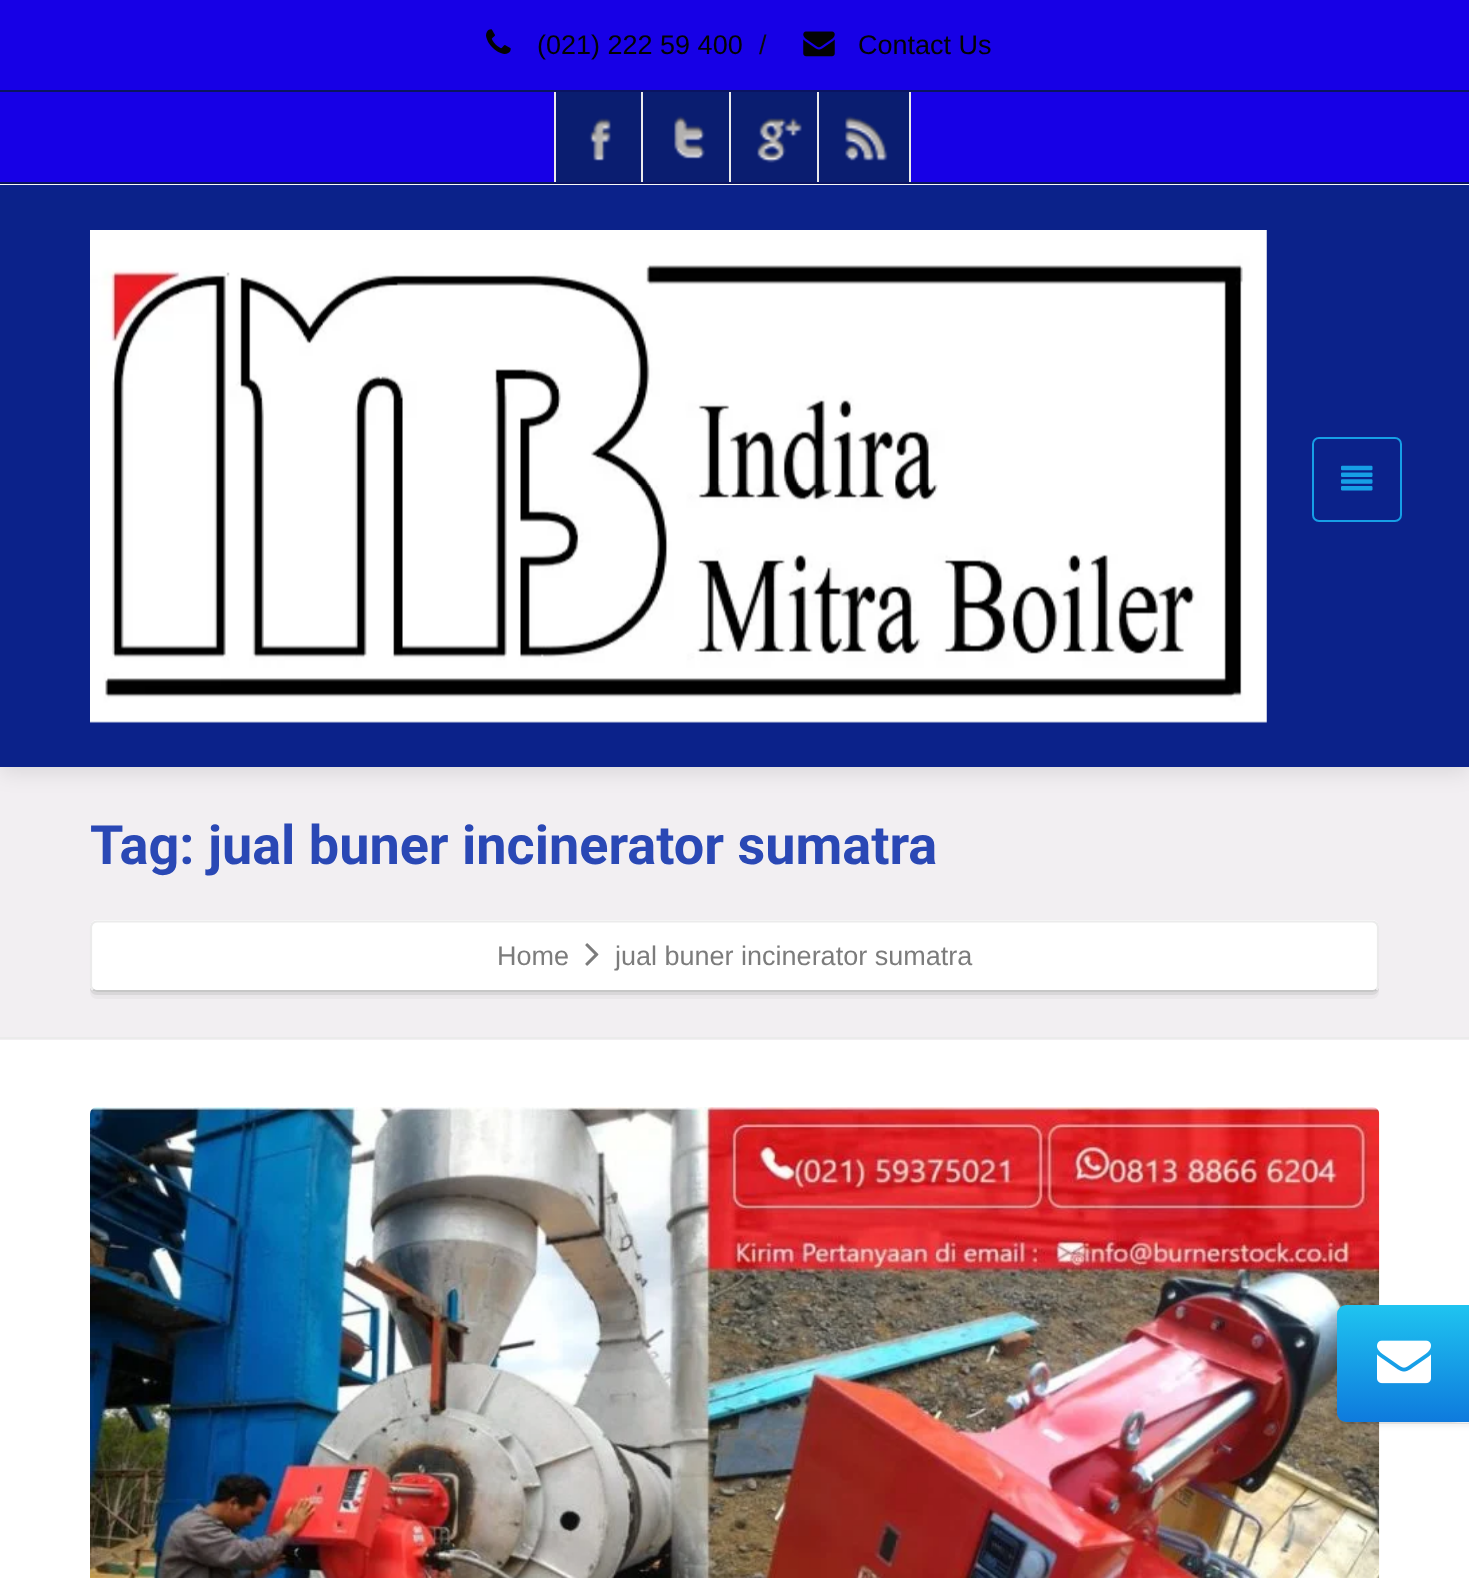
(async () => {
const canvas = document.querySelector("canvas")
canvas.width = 1469
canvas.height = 1578
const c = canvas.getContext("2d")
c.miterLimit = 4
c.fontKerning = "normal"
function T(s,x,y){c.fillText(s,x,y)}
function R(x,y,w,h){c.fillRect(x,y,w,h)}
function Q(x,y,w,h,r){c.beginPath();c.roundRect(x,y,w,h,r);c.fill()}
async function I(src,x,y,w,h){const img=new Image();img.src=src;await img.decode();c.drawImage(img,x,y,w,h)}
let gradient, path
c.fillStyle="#fff"
R(0,0,1469,1578)
c.fillStyle="#f2eff2"
R(0,767,1469,273)
c.fillStyle="#0000001a"
c.filter="blur(11px)"
c.beginPath()
c.rect(0,189,1469,583)
c.fill()
c.filter="none"
c.fillStyle="#f9f9f9"
R(28,184,1413,1)
c.fillStyle="#0a1461"
R(0,182,1469,2)
c.fillStyle="#1700e6"
R(0,0,1469,182)
c.fillStyle="#0a1461"
R(0,90,1469,2)
await I("1.png",486,29,25,25)
c.font="27px Liberation Sans"
c.fillStyle="#030303"
T("(021) 222 59 400",537,54)
c.fillStyle="#0a0a0a"
T("/",759,54)
await I("2.png",803,31,32,26)
c.fillStyle="#030303"
T("Contact Us",858,54)
c.fillStyle="#0a1d70"
R(556,92,85,90)
c.fillStyle="#ebebeb"
R(554,92,2,90)
await I("3.png",589,118,22,43)
c.fillStyle="#0a1d70"
R(643,92,86,90)
c.fillStyle="#ebebeb"
R(641,92,2,90)
await I("4.png",674,116,31,43)
c.fillStyle="#0a1d70"
R(731,92,86,90)
c.fillStyle="#ebebeb"
R(729,92,2,90)
await I("5.png",757,117,45,46)
c.fillStyle="#0a1d70"
R(819,92,90,90)
c.fillStyle="#ebebeb"
R(909,92,2,90)
R(817,92,2,90)
await I("6.png",845,116,43,45)
c.fillStyle="#0b228a"
R(0,185,1469,582)
await I("7.png",90,230,1177,493)
c.beginPath()
c.roundRect(1313,438,88,83,6)
c.strokeStyle="#169fe6"
c.lineWidth=2
c.stroke()
await I("8.png",1341,465,32,26)
c.fillStyle="#ebebeb"
R(0,1037,1469,2)
c.font="bold 54px Roboto"
c.fillStyle="#2a48b5"
T("Tag: jual buner incinerator sumatra",90,864)
c.fillStyle="#e1dee1"
path = new Path2D("M90 986v2c0 4 3 7 7 7h1275c4 0 7-3 7-7v-1c-1 3-3 5-7 5h-1275c-4 0-7-3-7-6z")
c.fill(path)
c.fillStyle="#00000008"
path = new Path2D("M90 986v6c0 4 3 7 7 7h1275c4 0 7-3 7-7v-5c-1 3-3 5-7 5h-1275c-4 0-7-3-7-6z")
c.fill(path)
c.fillStyle="#fff"
Q(90,920,1289,72,7)
path = new Path2D("M1376.5 989.5c-1 1-2.5 1.5-4 1.5h-1275.5c-1.5 0-3-.5-4-1.5")
c.strokeStyle="#00000038"
c.lineWidth=2.2
c.stroke(path)
path = new Path2D("M93 989.5l-2-3v-60l1-2.5l2.5-2l2.5-.5h1275.5l2 .5l2.5 2l1 2.5v60l-1.5 3")
c.strokeStyle="#ebebeb"
c.stroke(path)
c.font="27px Liberation Sans"
c.fillStyle="#7c7c7c"
T("Home",497,965)
await I("9.png",585,943,14,23)
T("jual buner incinerator sumatra",615,965)
await I("10.png",90,1107,1290,471)
c.fillStyle="#00000014"
path = new Path2D("M1337 1416c1 5 4 8 9 8h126c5 0 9-4 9-9v-99l-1-3v102c-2 12-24 7-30 7h-84c-5 0-25 5-29-6z")
c.fill(path)
c.fillStyle="#0000000d"
c.filter="blur(2px)"
c.beginPath()
c.roundRect(1337,1310,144,117,9)
c.fill()
c.filter="none"
gradient = c.createLinearGradient(1409,1305,1409,1422)
gradient.addColorStop(0,"#1fc4f0")
gradient.addColorStop(1,"#0e7add")
c.fillStyle = gradient
Q(1337,1305,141,117,9)
await I("11.png",1377,1340,54,44)
})()
